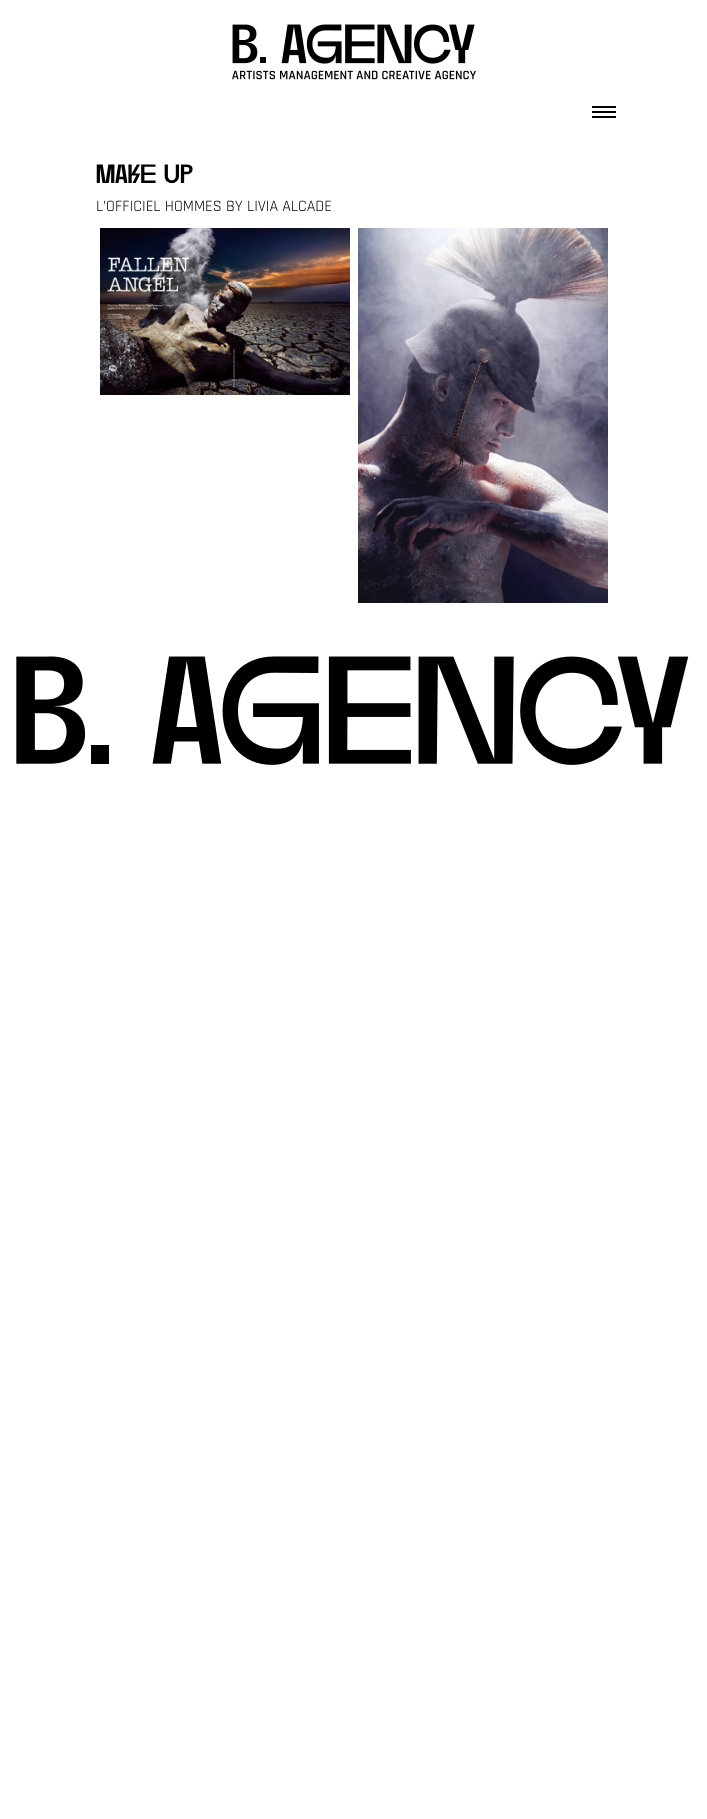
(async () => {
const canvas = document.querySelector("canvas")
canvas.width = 707
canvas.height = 1819
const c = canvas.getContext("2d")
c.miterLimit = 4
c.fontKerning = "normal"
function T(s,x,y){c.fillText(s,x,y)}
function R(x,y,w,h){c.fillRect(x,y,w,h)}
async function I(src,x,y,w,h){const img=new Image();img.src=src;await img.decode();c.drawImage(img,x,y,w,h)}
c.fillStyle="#fff"
R(0,0,707,1819)
await I("1.png",232,24,244,56)
c.fillStyle="#000"
R(592,116,24,2)
R(592,106,24,2)
R(592,111,24,2)
c.font="26.5px 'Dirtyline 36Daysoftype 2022'"
T("make up",96,183)
c.font="16px Rajdhani"
T("L’OFFICIEL HOMMES BY LIVIA ALCADE",96,211)
await I("2.png",100,228,250,167)
await I("3.png",358,228,250,375)
await I("4.png",16,656,673,109)
})()
